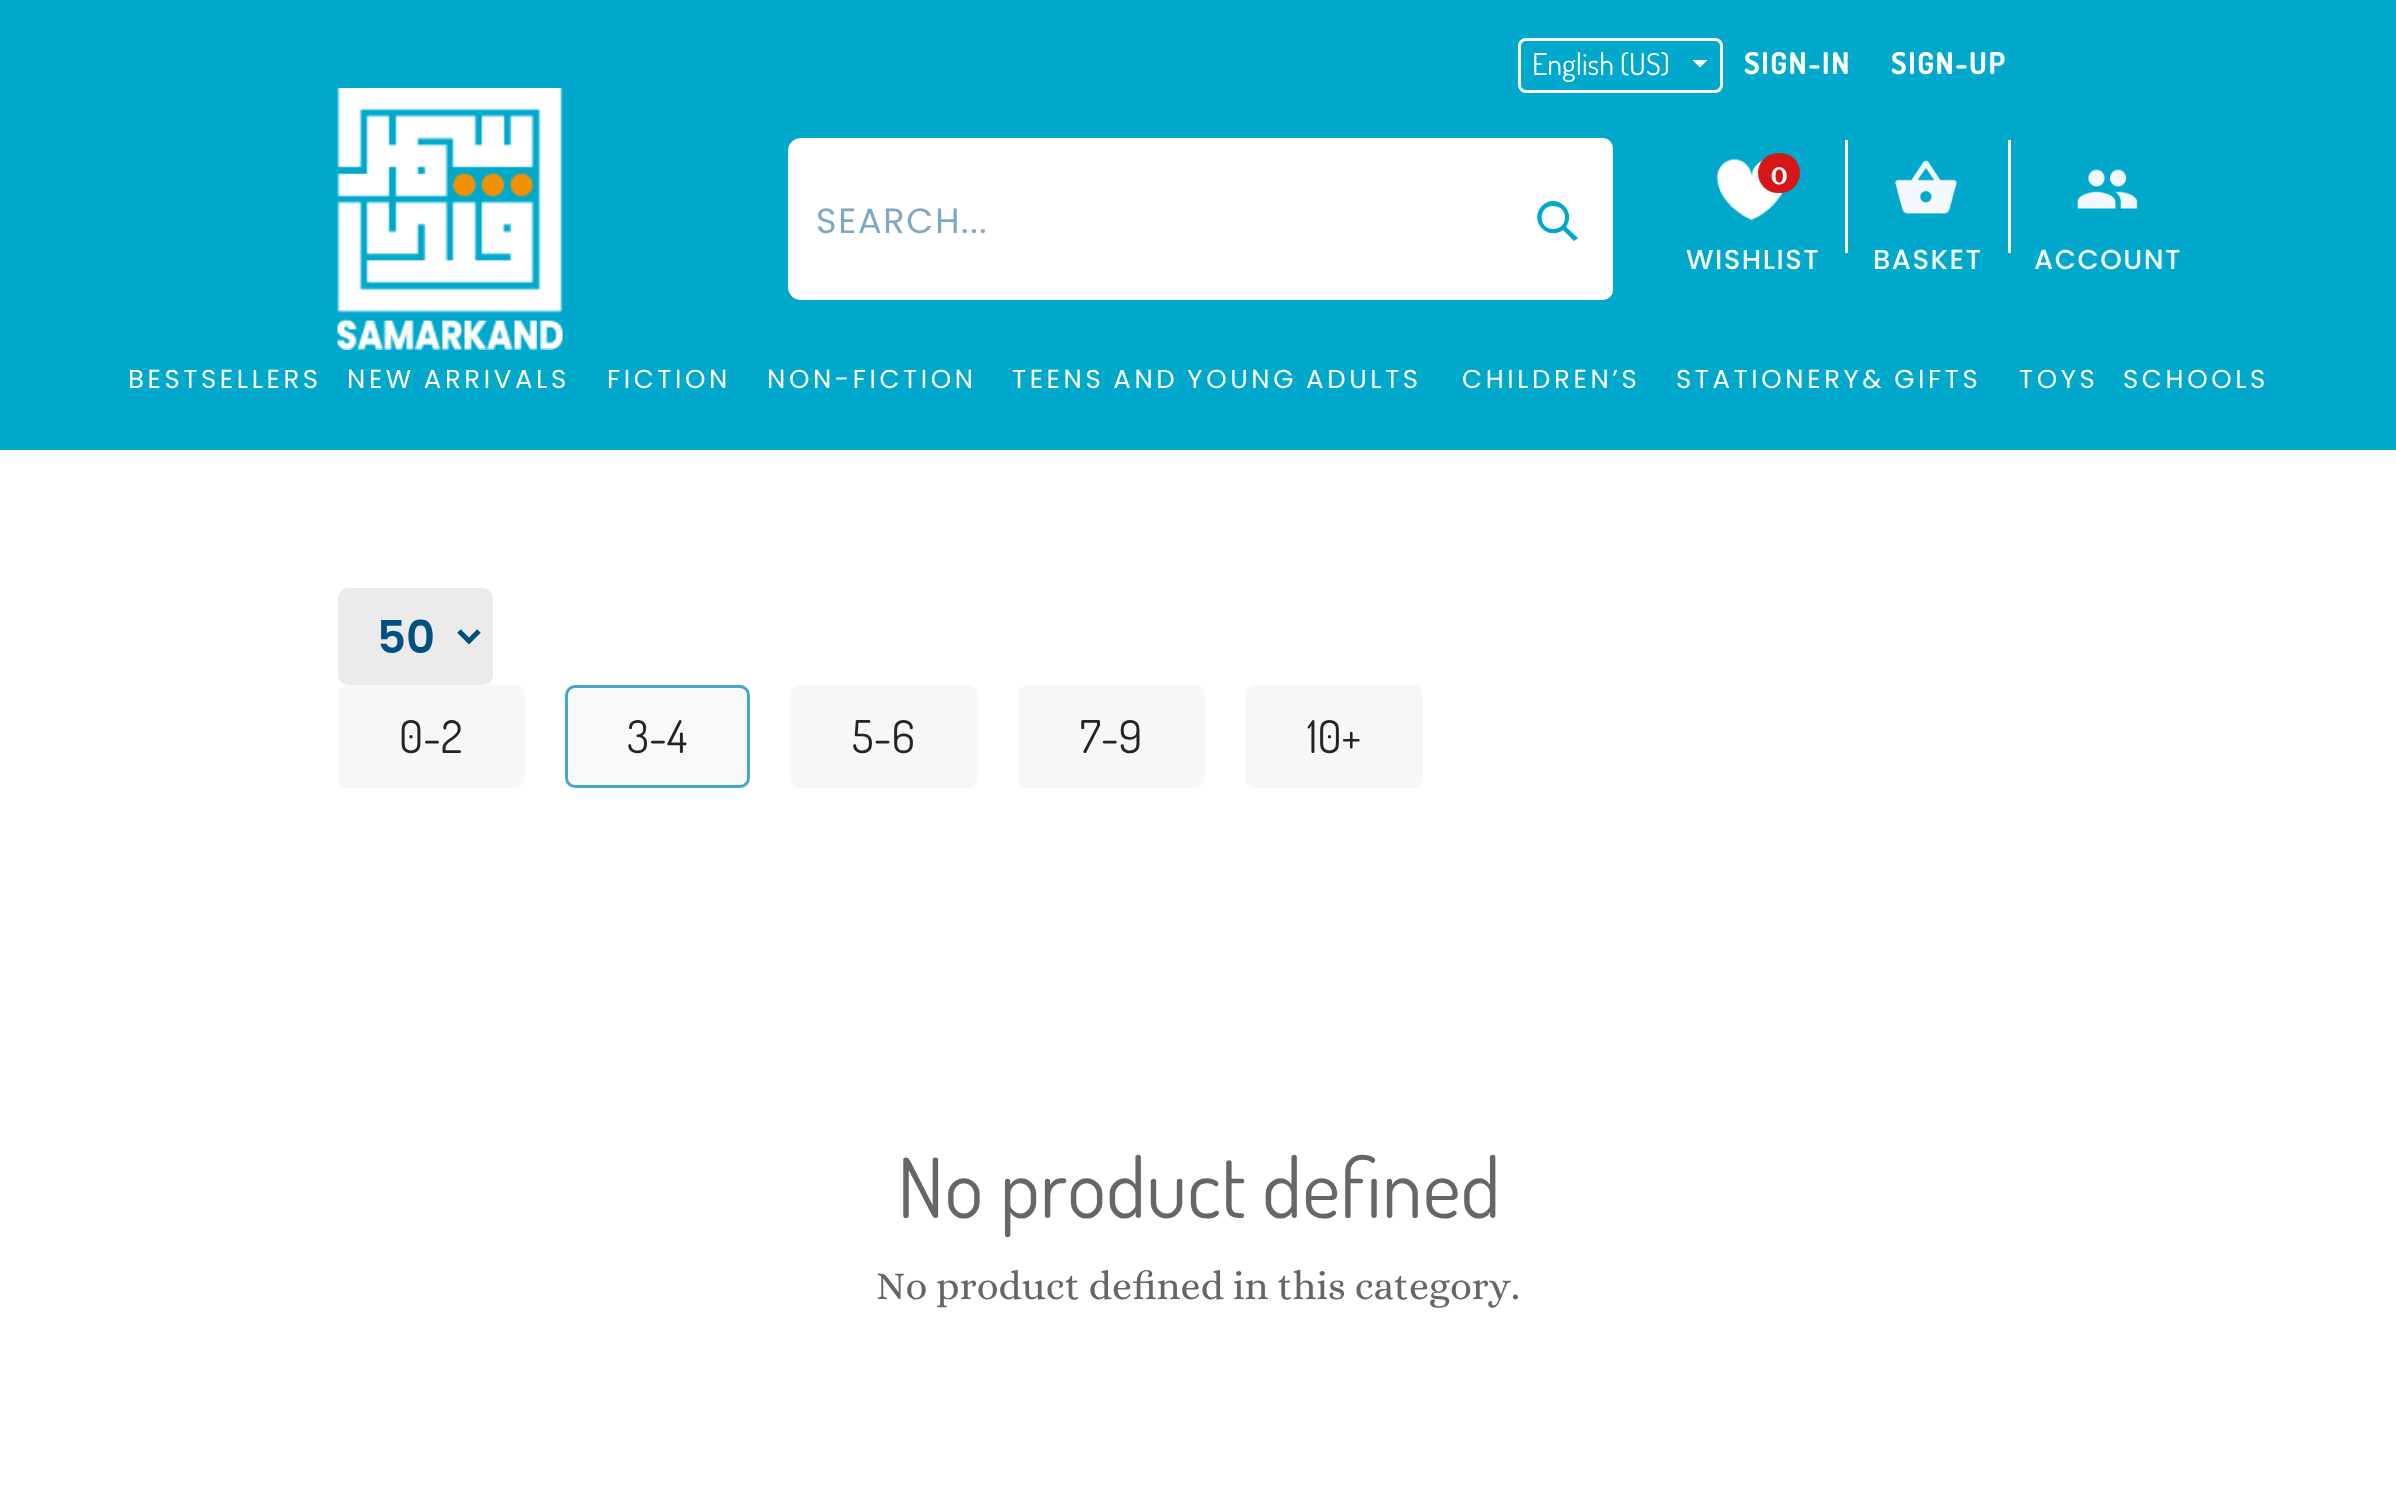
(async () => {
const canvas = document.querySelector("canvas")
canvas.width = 2396
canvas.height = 1497
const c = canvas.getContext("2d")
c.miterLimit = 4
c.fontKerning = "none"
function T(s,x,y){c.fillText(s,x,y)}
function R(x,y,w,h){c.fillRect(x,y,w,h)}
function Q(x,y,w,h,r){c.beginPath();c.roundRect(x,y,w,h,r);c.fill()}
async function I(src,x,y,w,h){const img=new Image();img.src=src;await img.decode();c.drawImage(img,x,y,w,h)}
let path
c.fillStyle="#fff"
R(0,0,2396,1497)
c.fillStyle="#00a8cc"
R(0,0,2396,450)
c.beginPath()
c.roundRect(1519.5,39.5,202,52,6.5)
c.strokeStyle="#fff"
c.lineWidth=3
c.stroke()
c.font="30px Dosis"
c.fillStyle="#fff"
T("English (US)",1532,75)
path = new Path2D("M1692.5 60h15l-7.5 7.5z")
c.fill(path)
c.letterSpacing="1.5px"
c.font="bold 30px Dosis"
T("SIGN-IN",1744,74)
T("SIGN-UP",1891,74)
await I("1.png",337,88,226,262)
c.beginPath()
c.roundRect(788,138,720,162,[13,0,0,13])
c.fill()
c.letterSpacing="1.75px"
c.font="35px Poppins"
c.fillStyle="#80a8c1"
T("SEARCH...",816,233)
c.fillStyle="#fff"
c.beginPath()
c.roundRect(1506.5,139.5,105,159,[0,8.5,8.5,0])
c.fill()
c.stroke()
c.fillStyle="#00a8cc"
path = new Path2D("M1541 207c13-16 37 3 25 20l12 11l-4 3l-11-11c-15 11-34-8-22-23zm12-1c-15 0-15 23 0 23c16 0 16-23 0-23z")
c.fill(path)
await I("2.png",1716,159,67,62)
c.fillStyle="#d51717"
Q(1758,153,42,40,20)
c.letterSpacing="0px"
c.font="bold 30px Alice"
c.fillStyle="#fff"
T("0",1770,184)
c.letterSpacing="1.5px"
c.font="500 27.5px Poppins"
c.fillStyle="#f4f8ff"
T("WISHLIST",1686,269)
c.fillStyle="#fff"
R(2008,140,3,113)
R(1845,140,3,113)
await I("3.png",1895,160,62,54)
c.fillStyle="#f4f8ff"
T("BASKET",1873,269)
await I("4.png",2077,169,61,40)
T("ACCOUNT",2034,269)
c.letterSpacing="3.6px"
c.font="26px Poppins"
c.fillStyle="#fff"
T("BESTSELLERS",128,388)
c.wordSpacing="-1.5px"
T("NEW ARRIVALS",347,388)
c.wordSpacing="0px"
T("FICTION",607,388)
T("NON-FICTION",767,388)
c.wordSpacing="-1.5px"
T("TEENS AND YOUNG ADULTS",1012,388)
c.wordSpacing="0px"
T("CHILDREN’S",1462,388)
c.wordSpacing="-1.5px"
T("STATIONERY& GIFTS",1676,388)
c.wordSpacing="0px"
T("TOYS",2019,388)
T("SCHOOLS",2123,388)
c.fillStyle="#ebebeb"
c.beginPath()
c.roundRect(339.5,589.5,152,94,8.5)
c.fill()
c.strokeStyle="#ebebeb"
c.stroke()
path = new Path2D("M459 631l10 10l10-10")
c.strokeStyle="#005082"
c.lineWidth=5
c.stroke(path)
c.letterSpacing="0px"
c.font="600 45px Poppins"
c.fillStyle="#005082"
T("50",377,653)
c.fillStyle="#f7f7f7"
Q(338,685,187,103,10)
c.font="45px Dosis"
c.fillStyle="#212529"
T("0-2",399,753)
c.fillStyle="#f9f9f9"
c.beginPath()
c.roundRect(566.5,686.5,182,100,8.5)
c.fill()
c.strokeStyle="#43a9cc"
c.lineWidth=3
c.stroke()
c.fillStyle="#212529"
T("3-4",627,753)
c.fillStyle="#f7f7f7"
Q(790,685,188,103,10)
c.fillStyle="#212529"
T("5-6",852,753)
c.fillStyle="#f7f7f7"
Q(1018,685,187,103,10)
c.fillStyle="#212529"
T("7-9",1080,753)
c.fillStyle="#f7f7f7"
Q(1245,685,178,103,10)
c.fillStyle="#212529"
T("10+",1307,753)
c.font="82.75px Dosis"
c.fillStyle="#646669"
T("No product defined",897,1218)
c.font="40px Alice"
T("No product defined in this category.",876,1299)
})()
